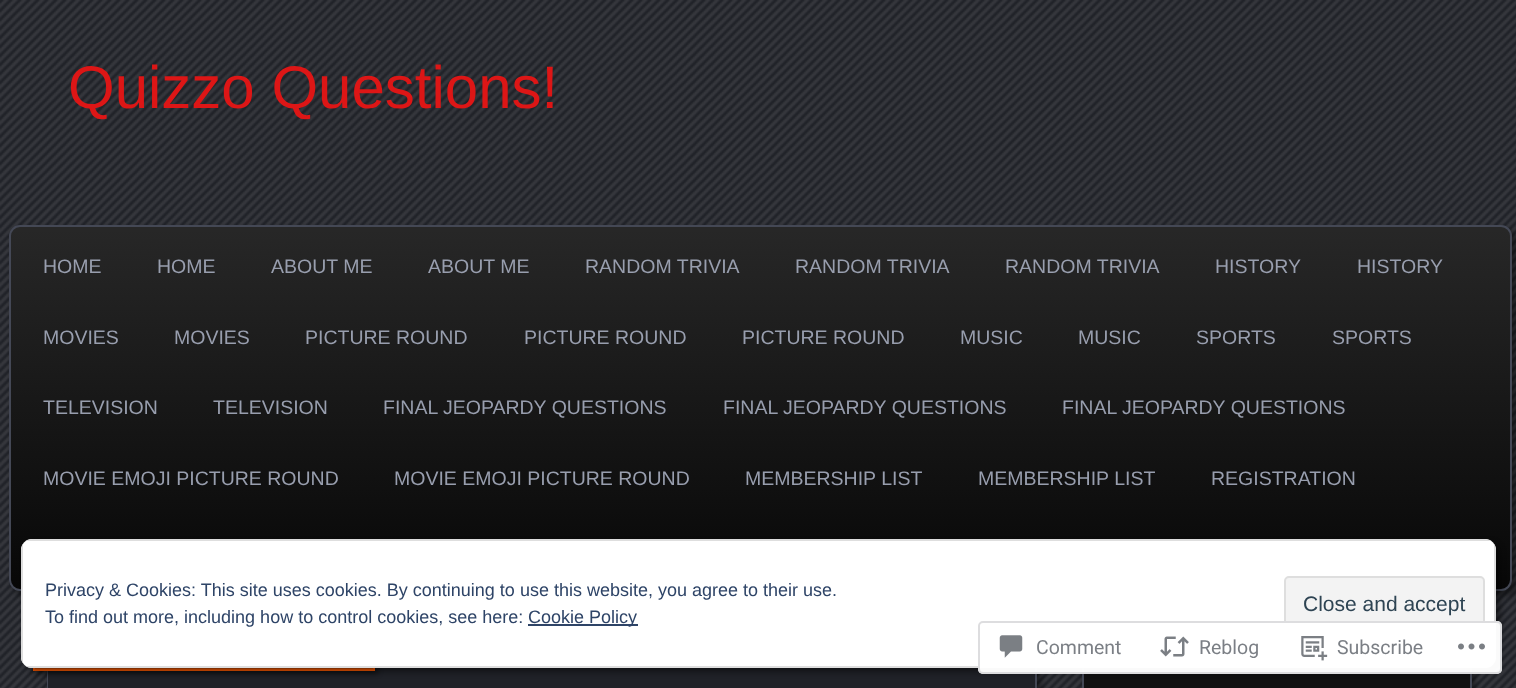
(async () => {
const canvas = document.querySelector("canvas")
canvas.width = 1516
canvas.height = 688
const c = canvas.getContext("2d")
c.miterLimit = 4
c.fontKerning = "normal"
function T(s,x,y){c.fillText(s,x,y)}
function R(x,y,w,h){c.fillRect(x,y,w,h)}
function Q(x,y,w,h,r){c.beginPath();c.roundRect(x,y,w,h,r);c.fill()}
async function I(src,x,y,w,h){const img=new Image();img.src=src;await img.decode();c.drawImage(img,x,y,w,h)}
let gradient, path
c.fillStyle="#202228"
R(0,0,1516,688)
await I("1.png",0,0,1516,688)
c.font="60px Liberation Sans"
c.fillStyle="#dd1616"
T("Quizzo Questions!",68,108)
c.fillStyle="#00000073"
c.filter="blur(3px)"
c.beginPath()
c.roundRect(14,230,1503,366,11)
c.fill()
c.filter="none"
c.save()
c.beginPath()
c.roundRect(9,225,1503,366,11)
c.clip()
gradient = c.createLinearGradient(761,226,761,590)
gradient.addColorStop(.01,"#272727")
gradient.addColorStop(1,"#070707")
c.fillStyle = gradient
R(9,227,1503,363)
c.restore()
c.beginPath()
c.roundRect(10,226,1501,364,10)
c.strokeStyle="#444855"
c.lineWidth=2
c.stroke()
c.font="19.5px Liberation Sans"
c.fillStyle="#989eae"
T("HOME",43,273)
T("HOME",157,273)
T("ABOUT ME",271,273)
T("ABOUT ME",428,273)
T("RANDOM TRIVIA",585,273)
T("RANDOM TRIVIA",795,273)
T("RANDOM TRIVIA",1005,273)
T("HISTORY",1215,273)
T("HISTORY",1357,273)
T("MOVIES",43,344)
T("MOVIES",174,344)
T("PICTURE ROUND",305,344)
T("PICTURE ROUND",524,344)
T("PICTURE ROUND",742,344)
T("MUSIC",960,344)
T("MUSIC",1078,344)
T("SPORTS",1196,344)
T("SPORTS",1332,344)
T("TELEVISION",43,414)
T("TELEVISION",213,414)
T("FINAL JEOPARDY QUESTIONS",383,414)
T("FINAL JEOPARDY QUESTIONS",723,414)
T("FINAL JEOPARDY QUESTIONS",1062,414)
T("MOVIE EMOJI PICTURE ROUND",43,485)
T("MOVIE EMOJI PICTURE ROUND",394,485)
T("MEMBERSHIP LIST",745,485)
T("MEMBERSHIP LIST",978,485)
T("REGISTRATION",1211,485)
c.fillStyle="#00000073"
c.filter="blur(3px)"
c.beginPath()
c.roundRect(51,656,990,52,11)
c.fill()
c.filter="none"
c.strokeRect(48,652,988,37)
c.fillStyle="#202228"
R(48,668,987,20)
c.fillStyle="#00000073"
c.filter="blur(2.5px)"
c.beginPath()
c.rect(36,641,342,33)
c.fill()
c.filter="none"
c.fillStyle="#d24d04"
R(35,668,338,1)
c.strokeStyle="#ff5a00"
c.strokeRect(34,639,340,31)
c.fillStyle="#00000073"
c.filter="blur(2.5px)"
c.beginPath()
c.roundRect(1085,654,390,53,11)
c.fill()
c.filter="none"
c.fillStyle="#111"
R(1084,668,386,20)
c.strokeStyle="#444855"
c.strokeRect(1083,652,388,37)
c.fillStyle="#00000073"
c.filter="blur(3px)"
c.beginPath()
c.roundRect(26,543,1474,129,11)
c.fill()
c.filter="none"
c.fillStyle="#fff"
Q(21,539,1475,129,11)
c.fillStyle="#dedede"
path = new Path2D("M21 550v107c0 2 1 5 2 6v-119c-1 1-2 4-2 6zm11-11c-2 0-5 1-6 2h1465c-1-1-4-2-6-2zm1464 11c0-2-1-5-2-6v119c1-1 2-4 2-6zm-11 118c2 0 5-1 6-2h-1465c1 1 4 2 6 2z")
c.fill(path,"evenodd")
c.font="18px Liberation Sans"
c.fillStyle="#2e4467"
T("Privacy & Cookies: This site uses cookies. By continuing to use this website, you agree to their use.",45,596)
c.fillStyle="#f3f3f3"
c.beginPath()
c.roundRect(1285,577,199,52,4)
c.fill()
c.strokeStyle="#dedede"
c.stroke()
c.font="21px Liberation Sans"
c.fillStyle="#2e4453"
T("Close and accept",1303,611)
c.font="18px Liberation Sans"
c.fillStyle="#2e4467"
T("To find out more, including how to control cookies, see here:",45,623)
R(528,624,110,2)
T("Cookie Policy",528,623)
c.fillStyle="#fffffffa"
Q(978,621,524,53,5)
c.beginPath()
c.roundRect(979,622,522,51,4)
c.strokeStyle="#dcdcdefa"
c.stroke()
await I("2.png",999,635,24,23)
c.font="19.5px Roboto"
c.fillStyle="#7b7f85"
T("Comment",1036,654)
await I("3.png",1160,636,29,21)
T("Reblog",1199,654)
await I("4.png",1301,636,27,25)
T("Subscribe",1337,654)
await I("5.png",1458,643,27,7)
})()
